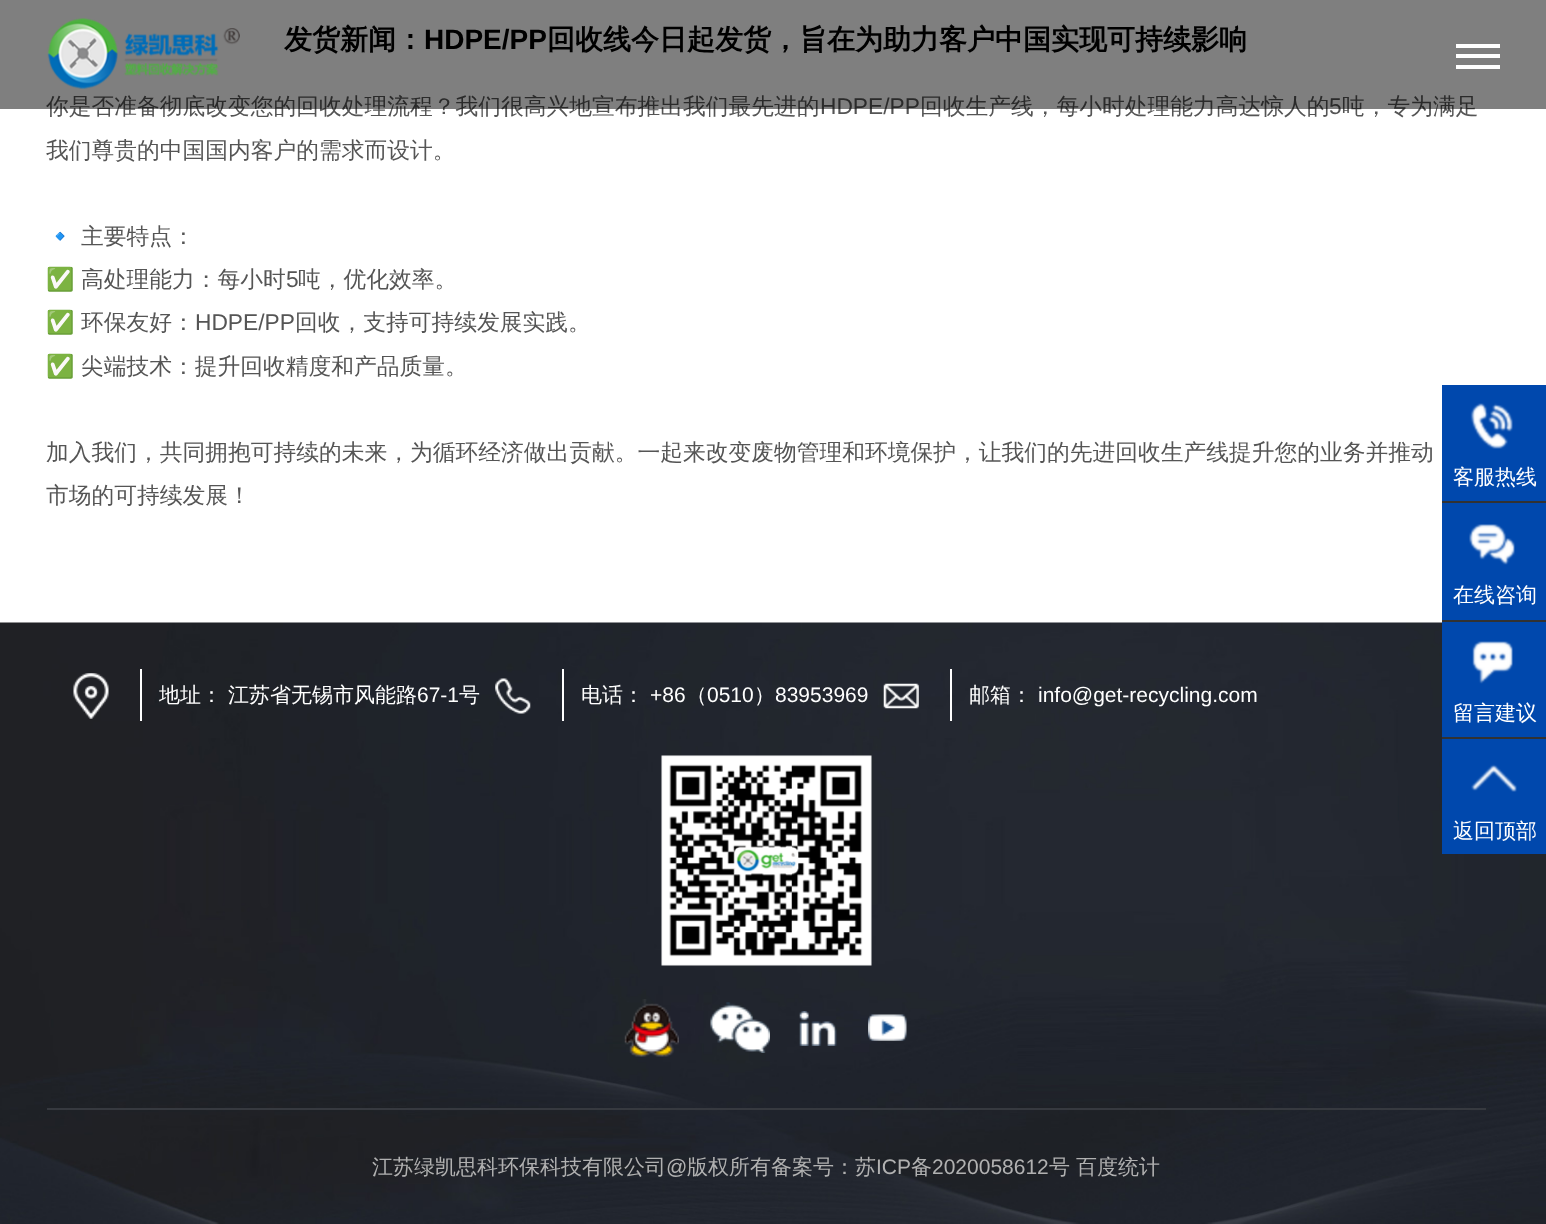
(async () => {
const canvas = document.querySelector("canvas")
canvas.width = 1546
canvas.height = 1224
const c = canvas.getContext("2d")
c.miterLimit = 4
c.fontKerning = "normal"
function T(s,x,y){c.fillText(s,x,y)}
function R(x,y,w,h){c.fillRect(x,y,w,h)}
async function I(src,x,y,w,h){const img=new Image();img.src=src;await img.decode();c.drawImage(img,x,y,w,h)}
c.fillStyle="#fff"
R(0,0,1546,1224)
c.font="bold 28px WenQuanYi Zen Hei"
c.fillStyle="#000"
T("发货新闻：",284,49)
c.font="bold 28px Liberation Sans"
T("HDPE/PP",424,49)
c.font="bold 28px WenQuanYi Zen Hei"
T("回收线今日起发货，旨在为助力客户中国实现可持续影响",547,49)
c.font="500 22.75px WenQuanYi Zen Hei"
c.fillStyle="#555"
T("你是否准备彻底改变您的回收处理流程？我们很高兴地宣布推出我们最先进的",46,114)
c.font="22.75px Liberation Sans"
T("HDPE/PP",820,114)
c.font="500 22.75px WenQuanYi Zen Hei"
T("回收生产线，每小时处理能力高达惊人的",920,114)
c.font="22.75px Liberation Sans"
T("5",1329,114)
c.font="500 22.75px WenQuanYi Zen Hei"
T("吨，专为满足",1342,114)
c.fillStyle="#00000080"
R(0,0,1546,109)
await I("1.png",47,18,193,71)
c.fillStyle="#fff"
R(1456,54,44,4)
R(1456,44,44,4)
R(1456,65,44,4)
c.fillStyle="#555"
T("我们尊贵的中国国内客户的需求而设计。",46,158)
c.font="22.75px Noto Color Emoji"
T("🔹",46,244)
c.font="500 22.75px WenQuanYi Zen Hei"
T("主要特点：",81,244)
c.font="22.75px Noto Color Emoji"
T("✅",46,287)
c.font="500 22.75px WenQuanYi Zen Hei"
T("高处理能力：每小时",81,287)
c.font="22.75px Liberation Sans"
T("5",286,287)
c.font="500 22.75px WenQuanYi Zen Hei"
T("吨，优化效率。",298,287)
c.font="22.75px Noto Color Emoji"
T("✅",46,330)
c.font="500 22.75px WenQuanYi Zen Hei"
T("环保友好：",81,330)
c.font="22.75px Liberation Sans"
T("HDPE/PP",195,330)
c.font="500 22.75px WenQuanYi Zen Hei"
T("回收，支持可持续发展实践。",295,330)
c.font="22.75px Noto Color Emoji"
T("✅",46,374)
c.font="500 22.75px WenQuanYi Zen Hei"
T("尖端技术：提升回收精度和产品质量。",81,374)
T("加入我们，共同拥抱可持续的未来，为循环经济做出贡献。一起来改变废物管理和环境保护，让我们的先进回收生产线提升您的业务并推动",46,460)
T("市场的可持续发展！",46,503)
await I("2.png",0,622,1546,602)
await I("3.png",73,673,36,46)
c.fillStyle="#fff"
R(140,669,2,52)
c.font="500 21px WenQuanYi Zen Hei"
T("地址：",159,702)
T("江苏省无锡市风能路",228,702)
c.font="21px Liberation Sans"
T("67-1",417,702)
c.font="500 21px WenQuanYi Zen Hei"
T("号",459,702)
await I("4.png",495,678,36,36)
R(562,669,2,52)
T("电话：",581,702)
c.font="21px Liberation Sans"
T("+86",650,702)
c.font="500 21px WenQuanYi Zen Hei"
T("（",686,702)
c.font="21px Liberation Sans"
T("0510",707,702)
c.font="500 21px WenQuanYi Zen Hei"
T("）",754,702)
c.font="21px Liberation Sans"
T("83953969",775,702)
await I("5.png",883,683,36,26)
R(950,669,2,52)
c.font="500 21px WenQuanYi Zen Hei"
T("邮箱：",969,702)
c.font="21px Liberation Sans"
T("info@get-recycling.com",1038,702)
await I("6.png",661,755,211,211)
await I("7.png",624,999,55,58)
await I("8.png",710,1002,60,51)
await I("9.png",799,1011,38,35)
await I("10.png",868,1014,39,27)
c.fillStyle="#36393f"
R(47,1108,1439,2)
c.font="500 21px WenQuanYi Zen Hei"
c.fillStyle="#b1b1b1"
T("江苏绿凯思科环保科技有限公司",372,1174)
c.font="21px Liberation Sans"
T("@",666,1174)
c.font="500 21px WenQuanYi Zen Hei"
T("版权所有备案号：苏",687,1174)
c.font="21px Liberation Sans"
T("ICP",876,1174)
c.font="500 21px WenQuanYi Zen Hei"
T("备",911,1174)
c.font="21px Liberation Sans"
T("2020058612",932,1174)
c.font="500 21px WenQuanYi Zen Hei"
T("号",1049,1174)
T("百度统计",1076,1174)
c.fillStyle="#0048ad"
R(1442,385,104,469)
await I("11.png",1470,403,43,46)
c.fillStyle="#fff"
T("客服热线",1453,484)
c.fillStyle="#323232"
R(1442,501,104,2)
await I("12.png",1469,524,46,41)
c.fillStyle="#fff"
T("在线咨询",1453,602)
c.fillStyle="#323232"
R(1442,620,104,2)
await I("13.png",1472,641,41,43)
c.fillStyle="#fff"
T("留言建议",1453,720)
c.fillStyle="#323232"
R(1442,737,104,2)
await I("14.png",1471,764,46,28)
c.fillStyle="#fff"
T("返回顶部",1453,838)
})()
